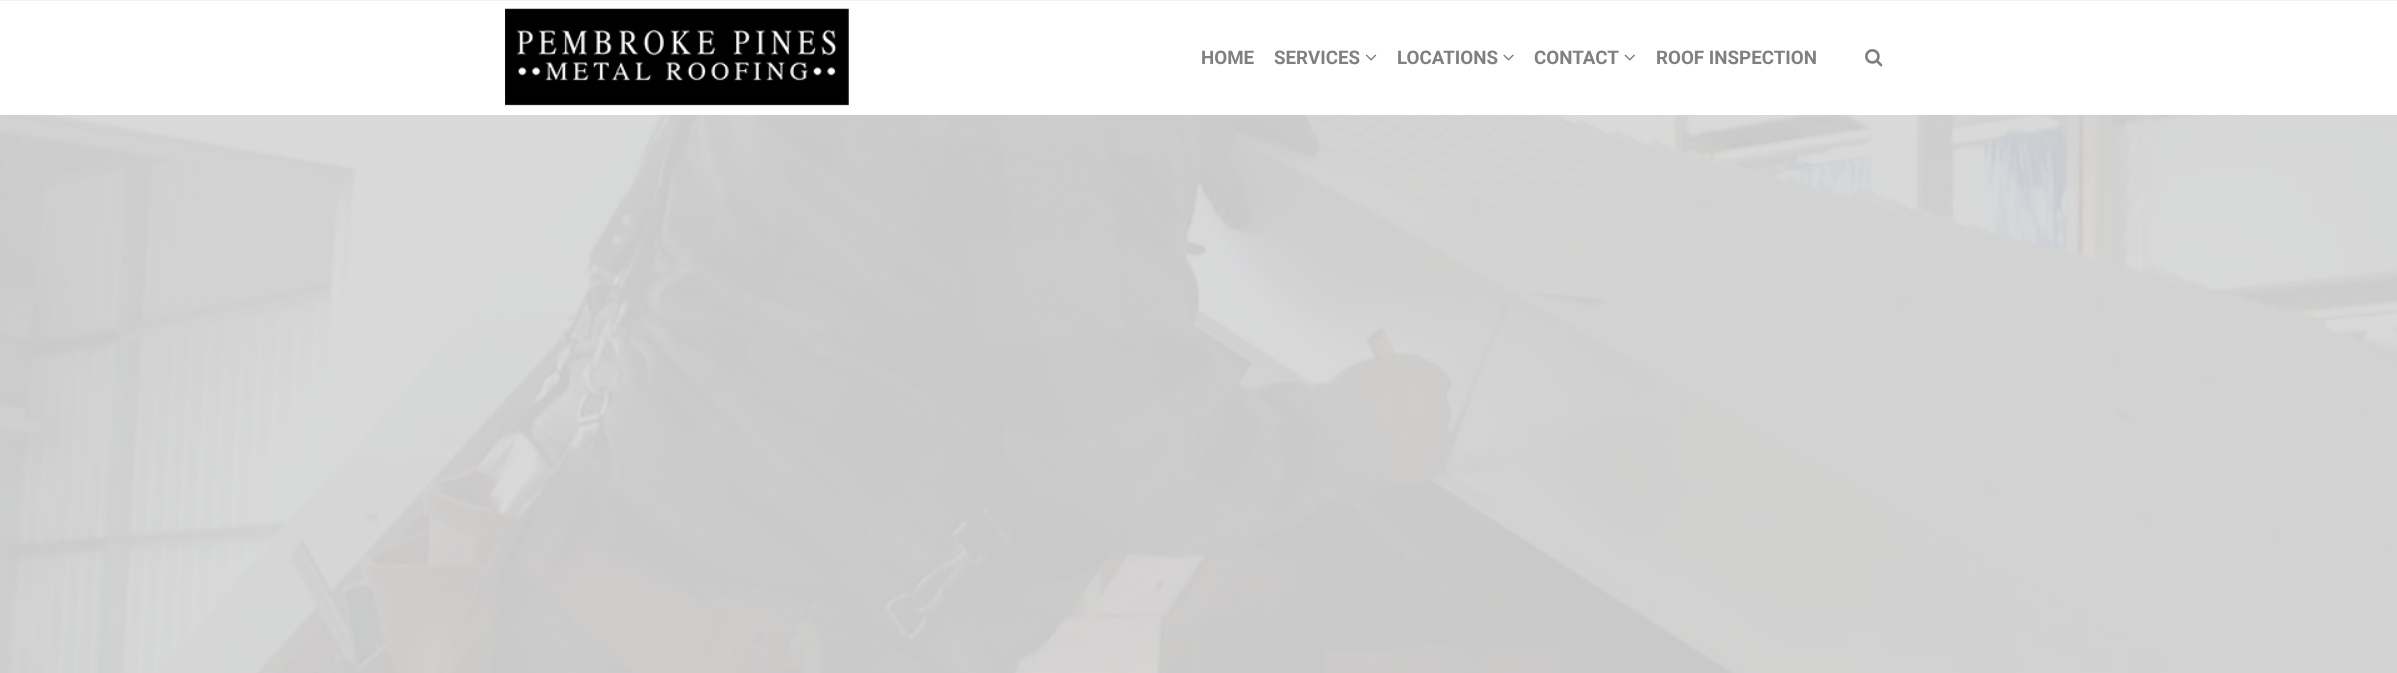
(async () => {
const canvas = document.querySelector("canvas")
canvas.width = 2397
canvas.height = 673
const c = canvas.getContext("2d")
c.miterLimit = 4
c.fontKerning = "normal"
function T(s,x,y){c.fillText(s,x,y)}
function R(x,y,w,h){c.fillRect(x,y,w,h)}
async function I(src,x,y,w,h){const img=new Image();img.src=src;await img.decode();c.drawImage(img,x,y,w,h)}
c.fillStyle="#fff"
R(0,0,2397,673)
c.fillStyle="#f0f2f7"
R(0,0,2397,1)
await I("1.png",505,8,344,98)
c.font="bold 18.75px Roboto"
c.fillStyle="#808080"
T("HOME",1201,64)
T("SERVICES",1274,64)
await I("2.png",1365,54,12,7)
T("LOCATIONS",1397,64)
await I("3.png",1503,54,11,7)
T("CONTACT",1534,64)
await I("4.png",1624,54,11,7)
T("ROOF INSPECTION",1656,64)
await I("5.png",1865,49,18,18)
c.fillStyle="#d8d8d8"
R(0,115,2397,558)
await I("6.png",0,115,2397,558)
})()
